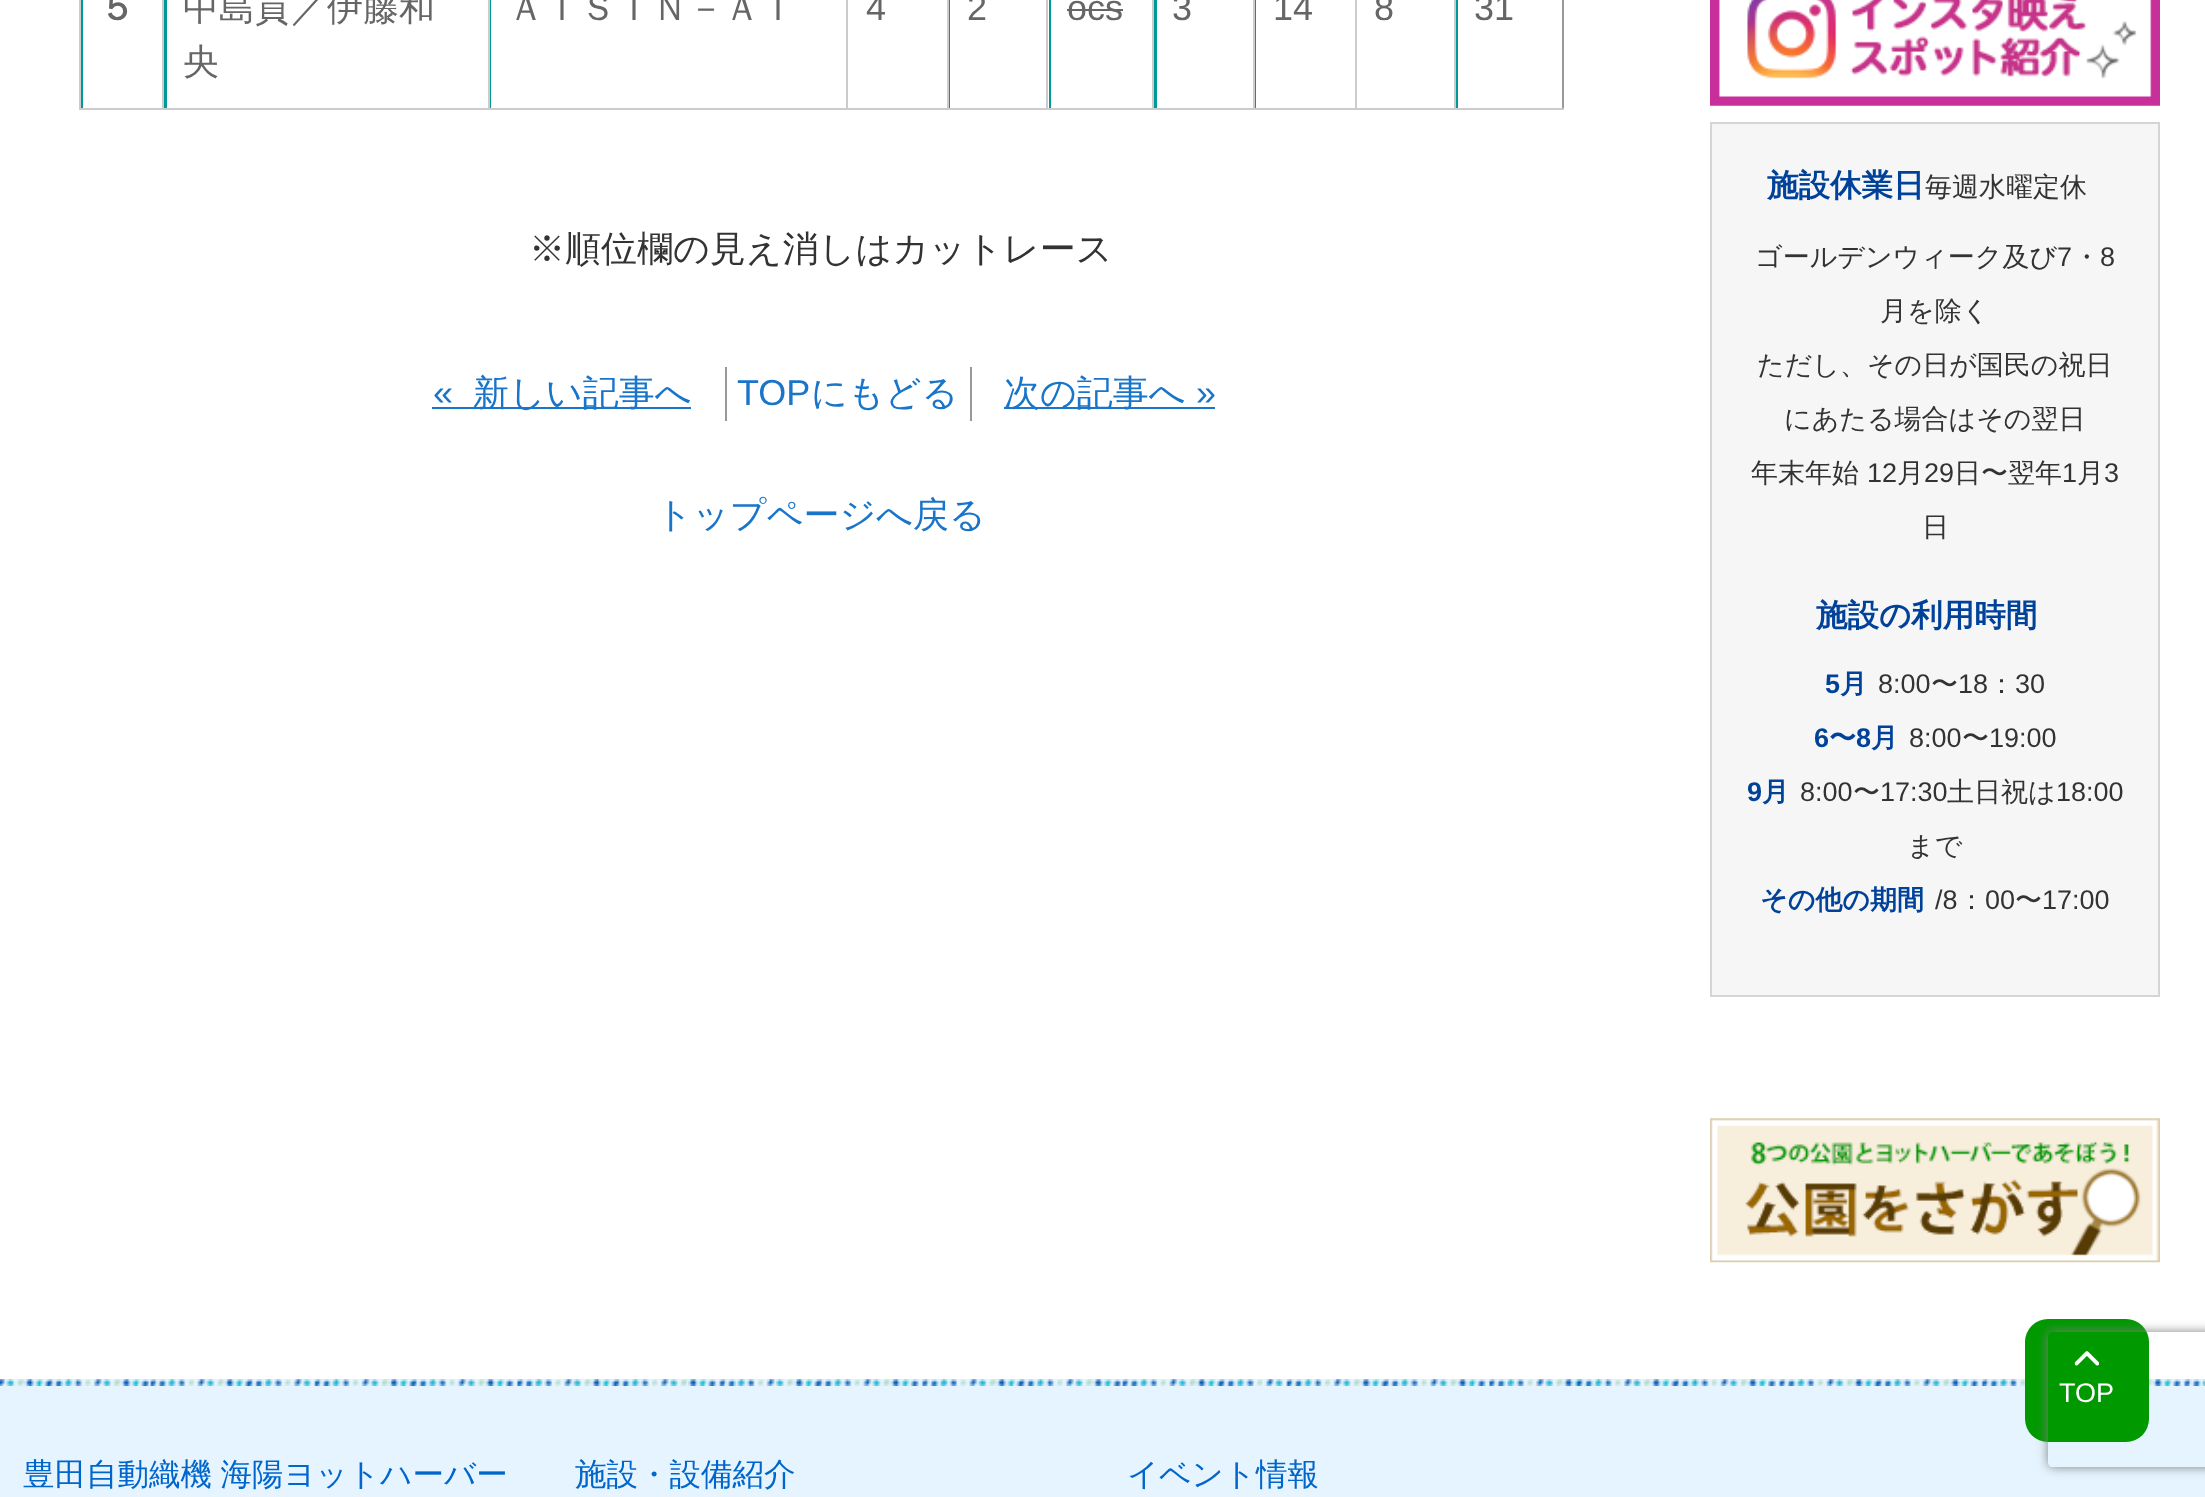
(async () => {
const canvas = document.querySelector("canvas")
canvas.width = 2205
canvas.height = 1497
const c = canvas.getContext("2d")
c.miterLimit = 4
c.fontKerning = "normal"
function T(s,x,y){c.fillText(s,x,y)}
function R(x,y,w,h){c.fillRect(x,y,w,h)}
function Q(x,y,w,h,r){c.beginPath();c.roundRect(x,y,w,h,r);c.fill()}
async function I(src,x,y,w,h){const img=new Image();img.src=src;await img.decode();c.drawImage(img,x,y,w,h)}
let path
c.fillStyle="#fff"
R(0,0,2205,1497)
c.fillStyle="#099"
R(81,0,1377,108)
c.fillStyle="#999"
R(1562,0,2,110)
c.fillStyle="#fff"
R(83,0,79,108)
c.fillStyle="#ccc"
R(1454,108,110,2)
R(1454,0,2,110)
R(1355,108,101,2)
R(1355,0,2,110)
R(1253,108,104,2)
R(1253,0,2,110)
R(1152,108,104,2)
R(1152,0,2,110)
R(1046,108,108,2)
c.fillStyle="#fff"
R(950,0,99,108)
c.fillStyle="#ccc"
R(1046,0,2,110)
R(947,108,102,2)
R(947,0,2,110)
R(846,108,104,2)
R(846,0,2,110)
R(488,108,360,2)
R(488,0,2,110)
R(162,108,329,2)
R(162,0,2,110)
R(79,108,85,2)
R(79,0,2,110)
c.font="bold 36px WenQuanYi Zen Hei"
c.fillStyle="#666"
T("５",99,20)
c.fillStyle="#fff"
R(167,0,321,108)
c.font="500 36px WenQuanYi Zen Hei"
c.fillStyle="#666"
T("中島貢／伊藤和",183,20)
T("央",183,74)
c.fillStyle="#fff"
R(491,0,355,108)
c.fillStyle="#666"
T("ＡＩＳＩＮ－ＡＩ",508,20)
c.fillStyle="#fff"
R(848,0,99,108)
c.font="36px Liberation Sans"
c.fillStyle="#666"
T("4",866,20)
T("2",967,20)
c.fillStyle="#fff"
R(1051,0,101,108)
c.fillStyle="#666"
T("ocs",1067,20)
R(1067,9,56,2)
c.fillStyle="#fff"
R(1157,0,96,108)
c.fillStyle="#666"
T("3",1172,20)
c.fillStyle="#fff"
R(1256,0,99,108)
c.fillStyle="#666"
T("14",1273,20)
c.fillStyle="#fff"
R(1357,0,97,108)
c.fillStyle="#666"
T("8",1374,20)
T("31",1474,20)
c.font="500 36px WenQuanYi Zen Hei"
c.fillStyle="#333"
T("※順位欄の見え消しはカットレース",529,261)
c.font="36px Liberation Sans"
c.fillStyle="#1975ca"
T("«",433,405)
R(432,407,259,2)
c.font="500 36px WenQuanYi Zen Hei"
T("新しい記事へ",473,405)
c.fillStyle="#999"
R(970,367,2,54)
R(725,367,2,54)
c.font="36px Liberation Sans"
c.fillStyle="#1975ca"
T("TOP",737,405)
c.font="500 36px WenQuanYi Zen Hei"
T("にもどる",811,405)
R(1004,407,211,2)
T("次の記事へ",1004,405)
c.font="36px Liberation Sans"
T("»",1196,405)
c.font="500 36px WenQuanYi Zen Hei"
T("トップページへ戻る",656,527)
await I("1.png",1710,0,450,106)
c.fillStyle="#f6f6f6"
c.beginPath()
c.rect(1711,123,448,873)
c.fill()
c.strokeStyle="#d5d5d5"
c.lineWidth=2
c.stroke()
c.font="bold 31.5px WenQuanYi Zen Hei"
c.fillStyle="#00429a"
T("施設休業日",1767,196)
c.font="500 27px WenQuanYi Zen Hei"
c.fillStyle="#333"
T("毎週水曜定休",1925,196)
T("ゴールデンウィーク及び",1755,266)
c.font="27px Liberation Sans"
T("7",2057,266)
c.font="500 27px WenQuanYi Zen Hei"
T("・",2073,266)
c.font="27px Liberation Sans"
T("8",2100,266)
c.font="500 27px WenQuanYi Zen Hei"
T("月を除く",1880,320)
T("ただし、その日が国民の祝日",1757,374)
T("にあたる場合はその翌日",1784,428)
T("年末年始",1751,482)
c.font="27px Liberation Sans"
T("12",1867,482)
c.font="500 27px WenQuanYi Zen Hei"
T("月",1897,482)
c.font="27px Liberation Sans"
T("29",1924,482)
c.font="500 27px WenQuanYi Zen Hei"
T("日〜翌年",1954,482)
c.font="27px Liberation Sans"
T("1",2062,482)
c.font="500 27px WenQuanYi Zen Hei"
T("月",2077,482)
c.font="27px Liberation Sans"
T("3",2104,482)
c.font="500 27px WenQuanYi Zen Hei"
T("日",1922,536)
c.font="bold 31.5px WenQuanYi Zen Hei"
c.fillStyle="#00429a"
T("施設の利用時間",1816,626)
c.font="bold 27px Liberation Sans"
T("5",1825,693)
c.font="bold 27px WenQuanYi Zen Hei"
T("月",1840,693)
c.font="27px Liberation Sans"
c.fillStyle="#333"
T("8:00",1878,693)
c.font="500 27px WenQuanYi Zen Hei"
T("〜",1931,693)
c.font="27px Liberation Sans"
T("18",1958,693)
c.font="500 27px WenQuanYi Zen Hei"
T("：",1988,693)
c.font="27px Liberation Sans"
T("30",2015,693)
c.font="bold 27px Liberation Sans"
c.fillStyle="#00429a"
T("6",1814,747)
c.font="bold 27px WenQuanYi Zen Hei"
T("〜",1829,747)
c.font="bold 27px Liberation Sans"
T("8",1856,747)
c.font="bold 27px WenQuanYi Zen Hei"
T("月",1871,747)
c.font="27px Liberation Sans"
c.fillStyle="#333"
T("8:00",1909,747)
c.font="500 27px WenQuanYi Zen Hei"
T("〜",1962,747)
c.font="27px Liberation Sans"
T("19:00",1989,747)
c.font="bold 27px Liberation Sans"
c.fillStyle="#00429a"
T("9",1747,801)
c.font="bold 27px WenQuanYi Zen Hei"
T("月",1762,801)
c.font="27px Liberation Sans"
c.fillStyle="#333"
T("8:00",1800,801)
c.font="500 27px WenQuanYi Zen Hei"
T("〜",1853,801)
c.font="27px Liberation Sans"
T("17:30",1880,801)
c.font="500 27px WenQuanYi Zen Hei"
T("土日祝は",1947,801)
c.font="27px Liberation Sans"
T("18:00",2056,801)
c.font="500 27px WenQuanYi Zen Hei"
T("まで",1907,855)
c.font="bold 27px WenQuanYi Zen Hei"
c.fillStyle="#00429a"
T("その他の期間",1760,909)
c.font="27px Liberation Sans"
c.fillStyle="#333"
T("/8",1935,909)
c.font="500 27px WenQuanYi Zen Hei"
T("：",1958,909)
c.font="27px Liberation Sans"
T("00",1985,909)
c.font="500 27px WenQuanYi Zen Hei"
T("〜",2015,909)
c.font="27px Liberation Sans"
T("17:00",2042,909)
await I("2.png",1710,1118,450,145)
c.fillStyle="#e5f4ff"
R(0,1379,2205,118)
await I("4.png",0,1379,2205,7)
c.fillStyle="#090"
Q(2025,1319,124,123,23)
await I("3.png",2074,1351,25,15)
c.save()
path = new Path2D("M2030 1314h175v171h-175zm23 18h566c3 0 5 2 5 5v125c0 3-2 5-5 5h-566c-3 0-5-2-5-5v-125c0-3 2-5 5-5z")
c.clip(path,"evenodd")
c.fillStyle="#808080"
c.filter="blur(5.5px)"
c.beginPath()
c.roundRect(2048,1332,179,135,5)
c.fill()
c.filter="none"
c.restore()
c.fillStyle="#fff"
T("TOP",2059,1402)
c.wordSpacing="-1px"
c.font="500 31.5px WenQuanYi Zen Hei"
c.fillStyle="#06c"
T("豊田自動織機 海陽ヨットハーバー",23,1485)
c.wordSpacing="0px"
T("施設・設備紹介",575,1485)
T("イベント情報",1127,1485)
})()
